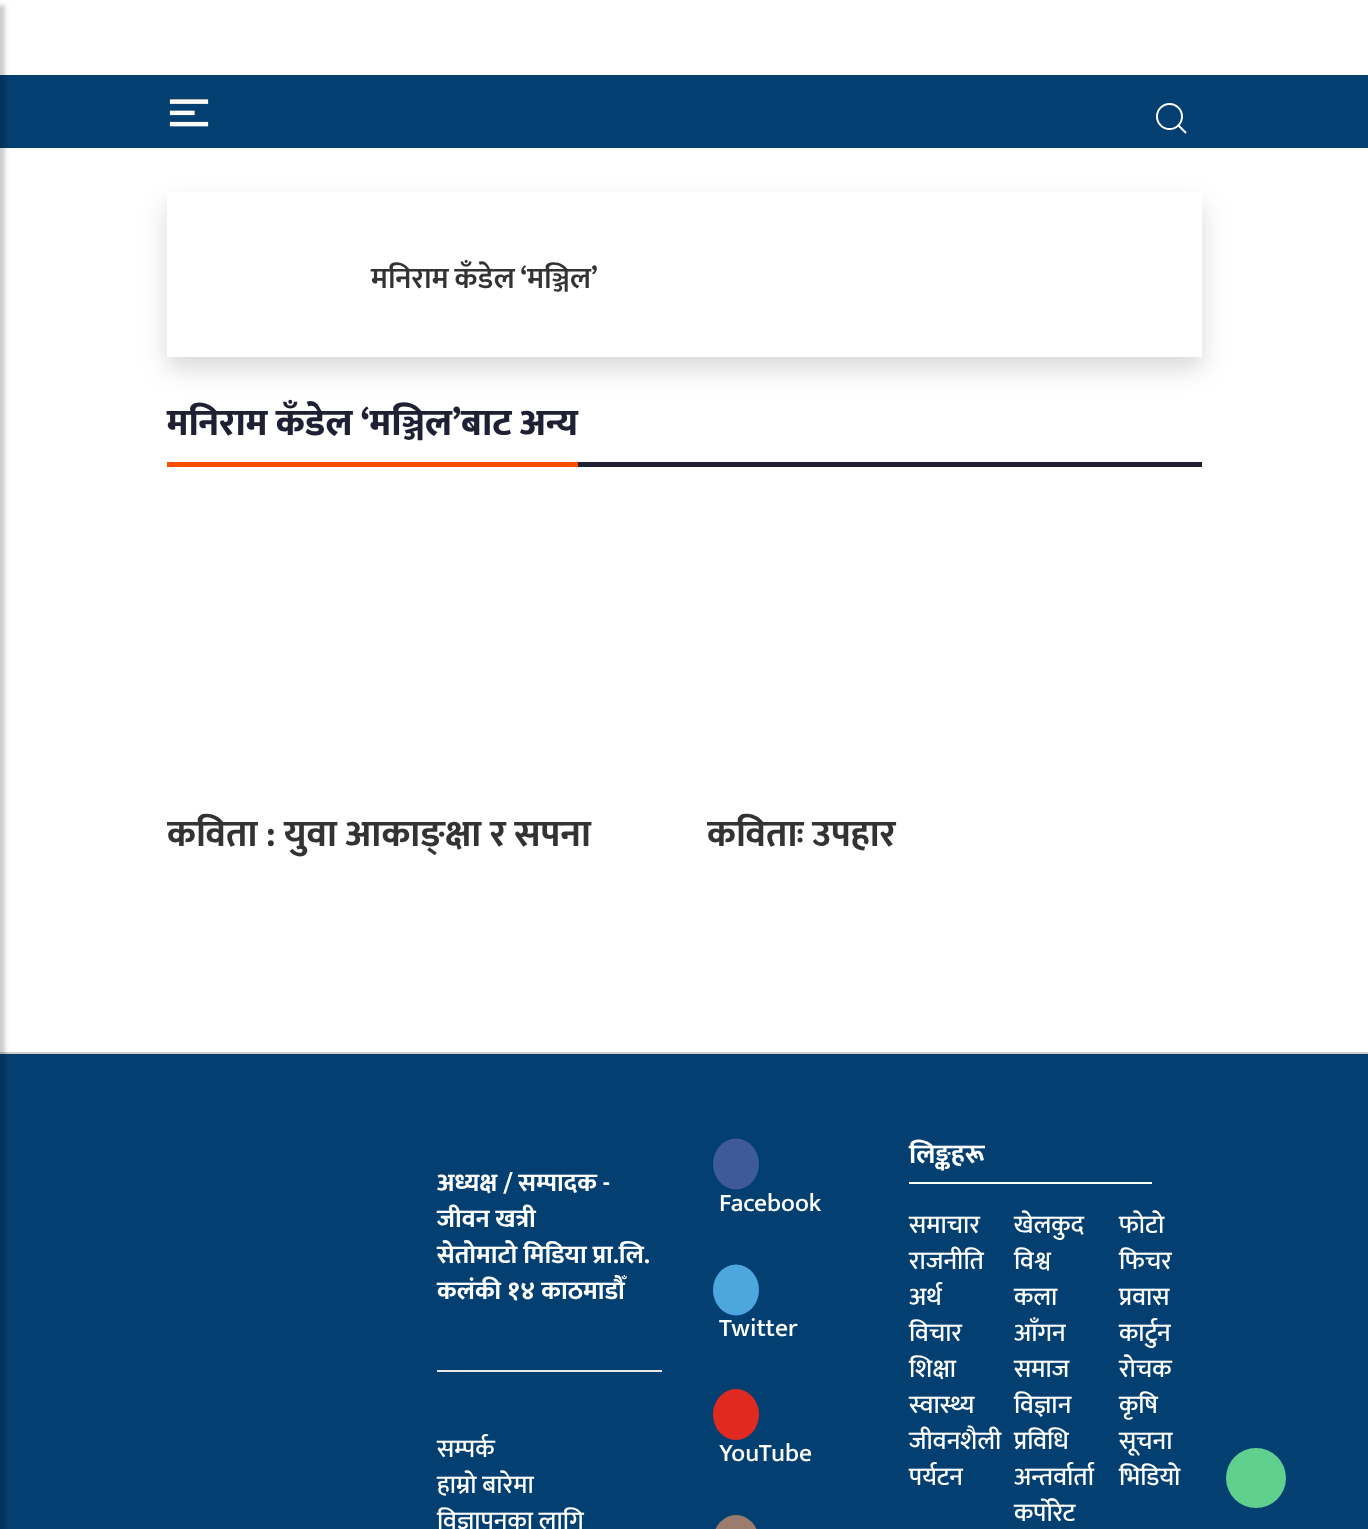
(async () => {
const canvas = document.querySelector("canvas")
canvas.width = 1368
canvas.height = 1529
const c = canvas.getContext("2d")
c.miterLimit = 4
c.fontKerning = "normal"
function T(s,x,y){c.fillText(s,x,y)}
function R(x,y,w,h){c.fillRect(x,y,w,h)}
async function I(src,x,y,w,h){const img=new Image();img.src=src;await img.decode();c.drawImage(img,x,y,w,h)}
let path
c.fillStyle="#fff"
R(0,0,1368,1529)
c.fillStyle="#043f71"
R(0,75,1368,73)
R(0,1054,1368,475)
c.fillStyle="#ccc"
R(0,1052,1368,2)
c.fillStyle="#00000033"
c.filter="blur(2px)"
c.beginPath()
c.rect(-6,5,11,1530)
c.fill()
c.filter="none"
await I("1.png",169,99,40,28)
c.beginPath()
c.arc(1169.5,116.5,12.5,0,7)
c.strokeStyle="#fff"
c.lineWidth=2
c.stroke()
path = new Path2D("M1178.5 125.5l7.5 7.5z")
c.stroke(path)
c.fillStyle="#00000026"
c.filter="blur(12px)"
c.beginPath()
c.rect(167,204,1035,165)
c.fill()
c.filter="none"
c.fillStyle="#fff"
R(167,192,1035,165)
c.wordSpacing="-1px"
c.font="600 30px Ek Mukta"
c.fillStyle="#333"
T("मनिराम कँडेल ‘मञ्जिल’",371,288)
c.fillStyle="#1f2033"
R(578,462,624,5)
c.wordSpacing="-0.5px"
c.font="800 37.5px Ek Mukta"
T("मनिराम कँडेल ‘मञ्जिल’बाट अन्य",167,435)
c.fillStyle="#ff4e02"
R(167,462,411,5)
c.save()
c.beginPath()
c.rect(167,519,495,443)
c.clip()
c.wordSpacing="0px"
c.font="bold 37.5px Ek Mukta"
c.fillStyle="#333"
T("कविता : युवा आकाङ्क्षा र सपना",167,846)
c.restore()
c.save()
c.beginPath()
c.rect(707,519,495,443)
c.clip()
c.wordSpacing="0px"
c.font="bold 37.5px Ek Mukta"
c.fillStyle="#333"
T("कविताः उपहार",707,846)
c.restore()
c.wordSpacing="0px"
c.font="bold 25.5px Ek Mukta"
c.fillStyle="#fff"
T("अध्यक्ष / सम्पादक -",437,1191)
T("जीवन खत्री",437,1227)
T("सेतोमाटो मिडिया प्रा.लि.",437,1263)
T("कलंकी १४ काठमाडौँ",437,1299)
c.fillStyle="#e7e7e7"
R(437,1370,225,2)
c.font="500 25.5px Ek Mukta"
c.fillStyle="#fff"
T("सम्पर्क",437,1457)
T("हाम्रो बारेमा",437,1493)
T("विज्ञापनका लागि",437,1529)
c.fillStyle="#3e5b98"
c.beginPath()
c.ellipse(736,1164,23,25.5,0,0,7)
c.fill()
c.fillStyle="#fff"
T("Facebook",719,1211)
c.fillStyle="#4da7de"
c.beginPath()
c.ellipse(736,1290,23,25.5,0,0,7)
c.fill()
c.fillStyle="#fff"
T("Twitter",719,1336)
c.fillStyle="#e02a20"
c.beginPath()
c.ellipse(736,1414.5,23,25.5,0,0,7)
c.fill()
c.fillStyle="#fff"
T("YouTube",719,1461)
c.fillStyle="#9c7c6e"
c.beginPath()
c.ellipse(736,1540.5,23,25.5,0,0,7)
c.fill()
c.font="bold 27px Ek Mukta"
c.fillStyle="#fff"
T("लिङ्कहरू",909,1163)
R(909,1182,243,2)
c.font="500 25.5px Ek Mukta"
T("समाचार",909,1233)
T("राजनीति",909,1269)
T("अर्थ",909,1305)
T("विचार",909,1341)
T("शिक्षा",909,1377)
T("स्वास्थ्य",909,1413)
T("जीवनशैली",909,1449)
T("पर्यटन",909,1485)
T("खेलकुद",1014,1233)
T("विश्व",1014,1269)
T("कला",1014,1305)
T("आँगन",1014,1341)
T("समाज",1014,1377)
T("विज्ञान",1014,1413)
T("प्रविधि",1014,1449)
T("अन्तर्वार्ता",1014,1485)
T("कर्पोरेट",1014,1521)
T("फोटो",1119,1233)
T("फिचर",1119,1269)
T("प्रवास",1119,1305)
T("कार्टुन",1119,1341)
T("रोचक",1119,1377)
T("कृषि",1119,1413)
T("सूचना",1119,1449)
T("भिडियो",1119,1485)
c.fillStyle="#60d08f"
c.beginPath()
c.arc(1256,1478,30,0,7)
c.fill()
})()
